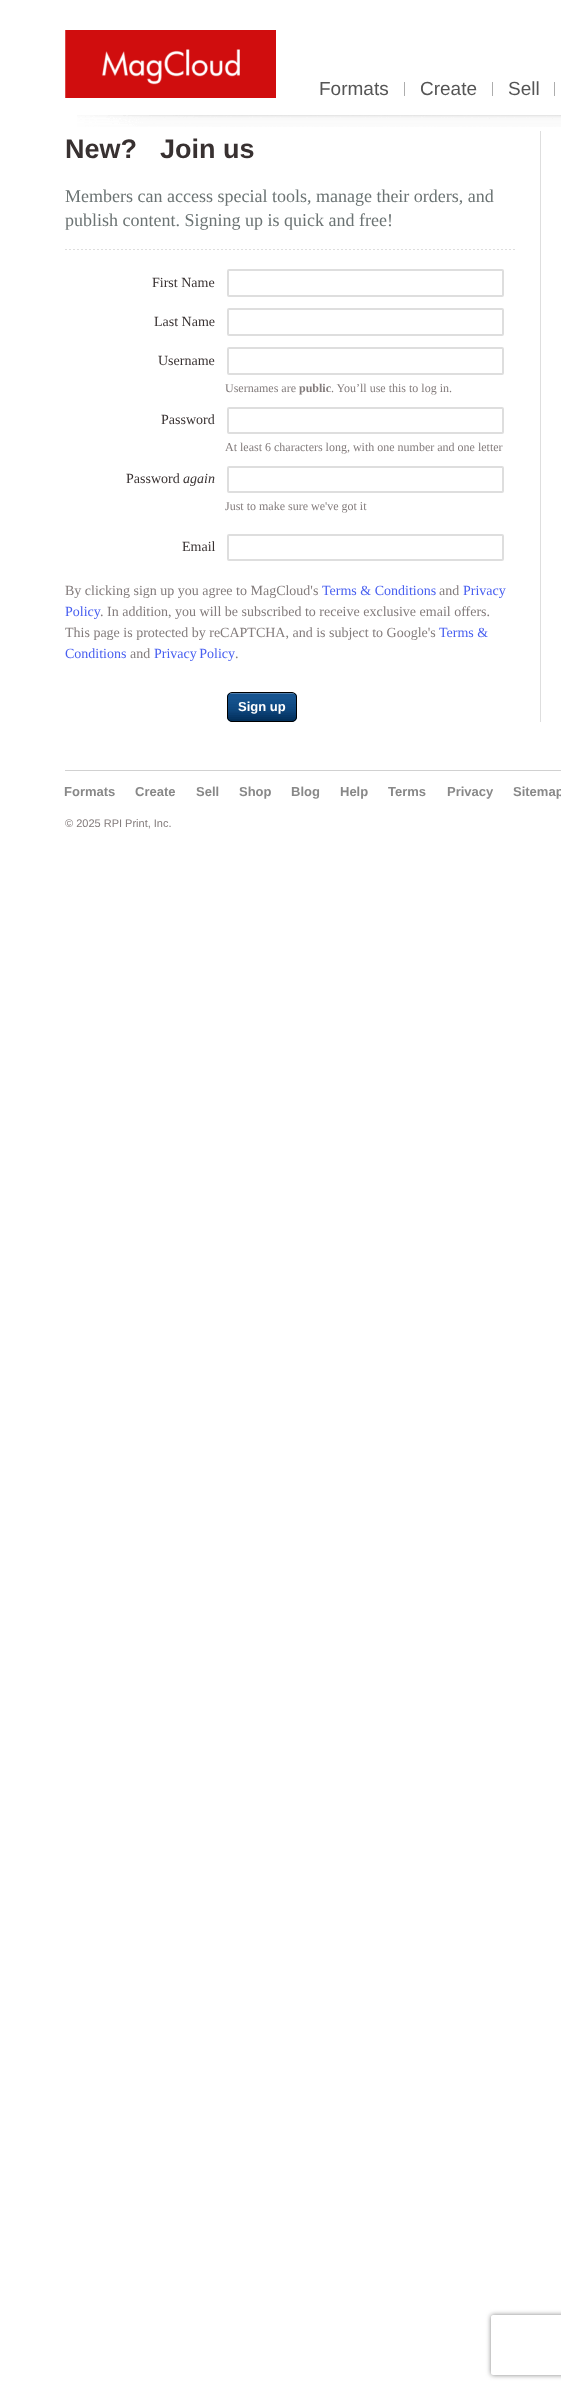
(async () => {
const canvas = document.querySelector("canvas")
canvas.width = 561
canvas.height = 2389
const c = canvas.getContext("2d")
c.miterLimit = 4
c.fontKerning = "normal"
function T(s,x,y){c.fillText(s,x,y)}
function R(x,y,w,h){c.fillRect(x,y,w,h)}
async function I(src,x,y,w,h){const img=new Image();img.src=src;await img.decode();c.drawImage(img,x,y,w,h)}
let path
c.fillStyle="#fff"
R(0,0,561,2389)
c.fillStyle="#d00d0e"
R(240,30,36,68)
await I("1.png",65,30,175,68)
c.font="19px Liberation Sans"
c.fillStyle="#555"
T("Formats",319,95)
c.fillStyle="#adadad"
R(404,82,1,14)
c.fillStyle="#555"
T("Create",420,95)
c.fillStyle="#adadad"
R(492,82,1,14)
c.fillStyle="#555"
T("Sell",508,95)
c.fillStyle="#adadad"
R(554,82,1,14)
await I("2.png",77,115,484,12)
c.fillStyle="#dedede"
R(540,131,1,591)
c.font="bold 27px Liberation Sans"
c.fillStyle="#383131"
T("New?",65,158)
T("Join us",160,158)
await I("3.png",65,249,450,1)
c.font="18px Liberation Serif"
c.fillStyle="#6b7373"
T("Members can access special tools, manage their orders, and",65,202)
T("publish content. Signing up is quick and free!",65,226)
c.font="14px Liberation Serif"
c.fillStyle="#383131"
T("First Name",152,287)
c.beginPath()
c.roundRect(228,270,275,26,1)
c.strokeStyle="#dedede"
c.lineWidth=2
c.stroke()
T("Last Name",154,326)
c.beginPath()
c.roundRect(228,309,275,26,1)
c.stroke()
T("Username",158,365)
c.beginPath()
c.roundRect(228,348,275,26,1)
c.stroke()
c.font="12px Liberation Serif"
c.fillStyle="#837c7c"
T("Usernames are",225,392)
c.font="bold 12px Liberation Serif"
T("public",299,392)
c.font="12px Liberation Serif"
T(". You’ll use this to log in.",331,392)
c.font="14px Liberation Serif"
c.fillStyle="#383131"
T("Password",161,424)
c.beginPath()
c.roundRect(228,408,275,25,1)
c.stroke()
c.font="12px Liberation Serif"
c.fillStyle="#837c7c"
T("At least 6 characters long, with one number and one letter",225,451)
c.font="14px Liberation Serif"
c.fillStyle="#383131"
T("Password",126,483)
c.font="italic 14px Liberation Serif"
T("again",183,483)
c.beginPath()
c.roundRect(228,467,275,25,1)
c.stroke()
c.font="12px Liberation Serif"
c.fillStyle="#837c7c"
T("Just to make sure we've got it",225,510)
c.font="14px Liberation Serif"
c.fillStyle="#383131"
T("Email",182,551)
c.beginPath()
c.roundRect(228,535,275,25,1)
c.stroke()
c.fillStyle="#837c7c"
T("By clicking sign up you agree to MagCloud's",65,595)
c.fillStyle="#485ff0"
T("Terms & Conditions",322,595)
c.fillStyle="#837c7c"
T("and",439,595)
c.fillStyle="#485ff0"
T("Privacy",463,595)
T("Policy",65,616)
c.fillStyle="#837c7c"
T(". In addition, you will be subscribed to receive exclusive email offers.",100,616)
T("This page is protected by reCAPTCHA, and is subject to Google's",65,637)
c.fillStyle="#485ff0"
T("Terms &",439,637)
T("Conditions",65,658)
c.fillStyle="#837c7c"
T("and",130,658)
c.wordSpacing="-1px"
c.fillStyle="#485ff0"
T("Privacy Policy",154,658)
c.wordSpacing="0px"
c.fillStyle="#837c7c"
T(".",235,658)
await I("4.png",227,693,70,29)
c.beginPath()
c.roundRect(227.5,692.5,69,29,4.5)
c.strokeStyle="#000"
c.lineWidth=1
c.stroke()
c.font="bold 13px Liberation Sans"
c.fillStyle="#fff"
T("Sign up",238,711)
c.save()
path = new Path2D("M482 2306h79v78h-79zm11 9h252c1 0 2 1 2 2v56c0 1-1 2-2 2h-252c-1 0-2-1-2-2v-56c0-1 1-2 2-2z")
c.clip(path,"evenodd")
c.fillStyle="#808080"
c.filter="blur(2.5px)"
c.beginPath()
c.roundRect(491,2315,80,60,2)
c.fill()
c.filter="none"
c.restore()
c.fillStyle="#d1d1d1"
R(65,770,496,1)
c.fillStyle="#888"
T("Formats",64,796)
T("Create",135,796)
T("Sell",196,796)
T("Shop",239,796)
T("Blog",291,796)
T("Help",340,796)
T("Terms",388,796)
T("Privacy",447,796)
T("Sitemap",513,796)
c.font="11px Liberation Sans"
c.fillStyle="#837c7c"
T("© 2025 RPI Print, Inc.",65,827)
})()
